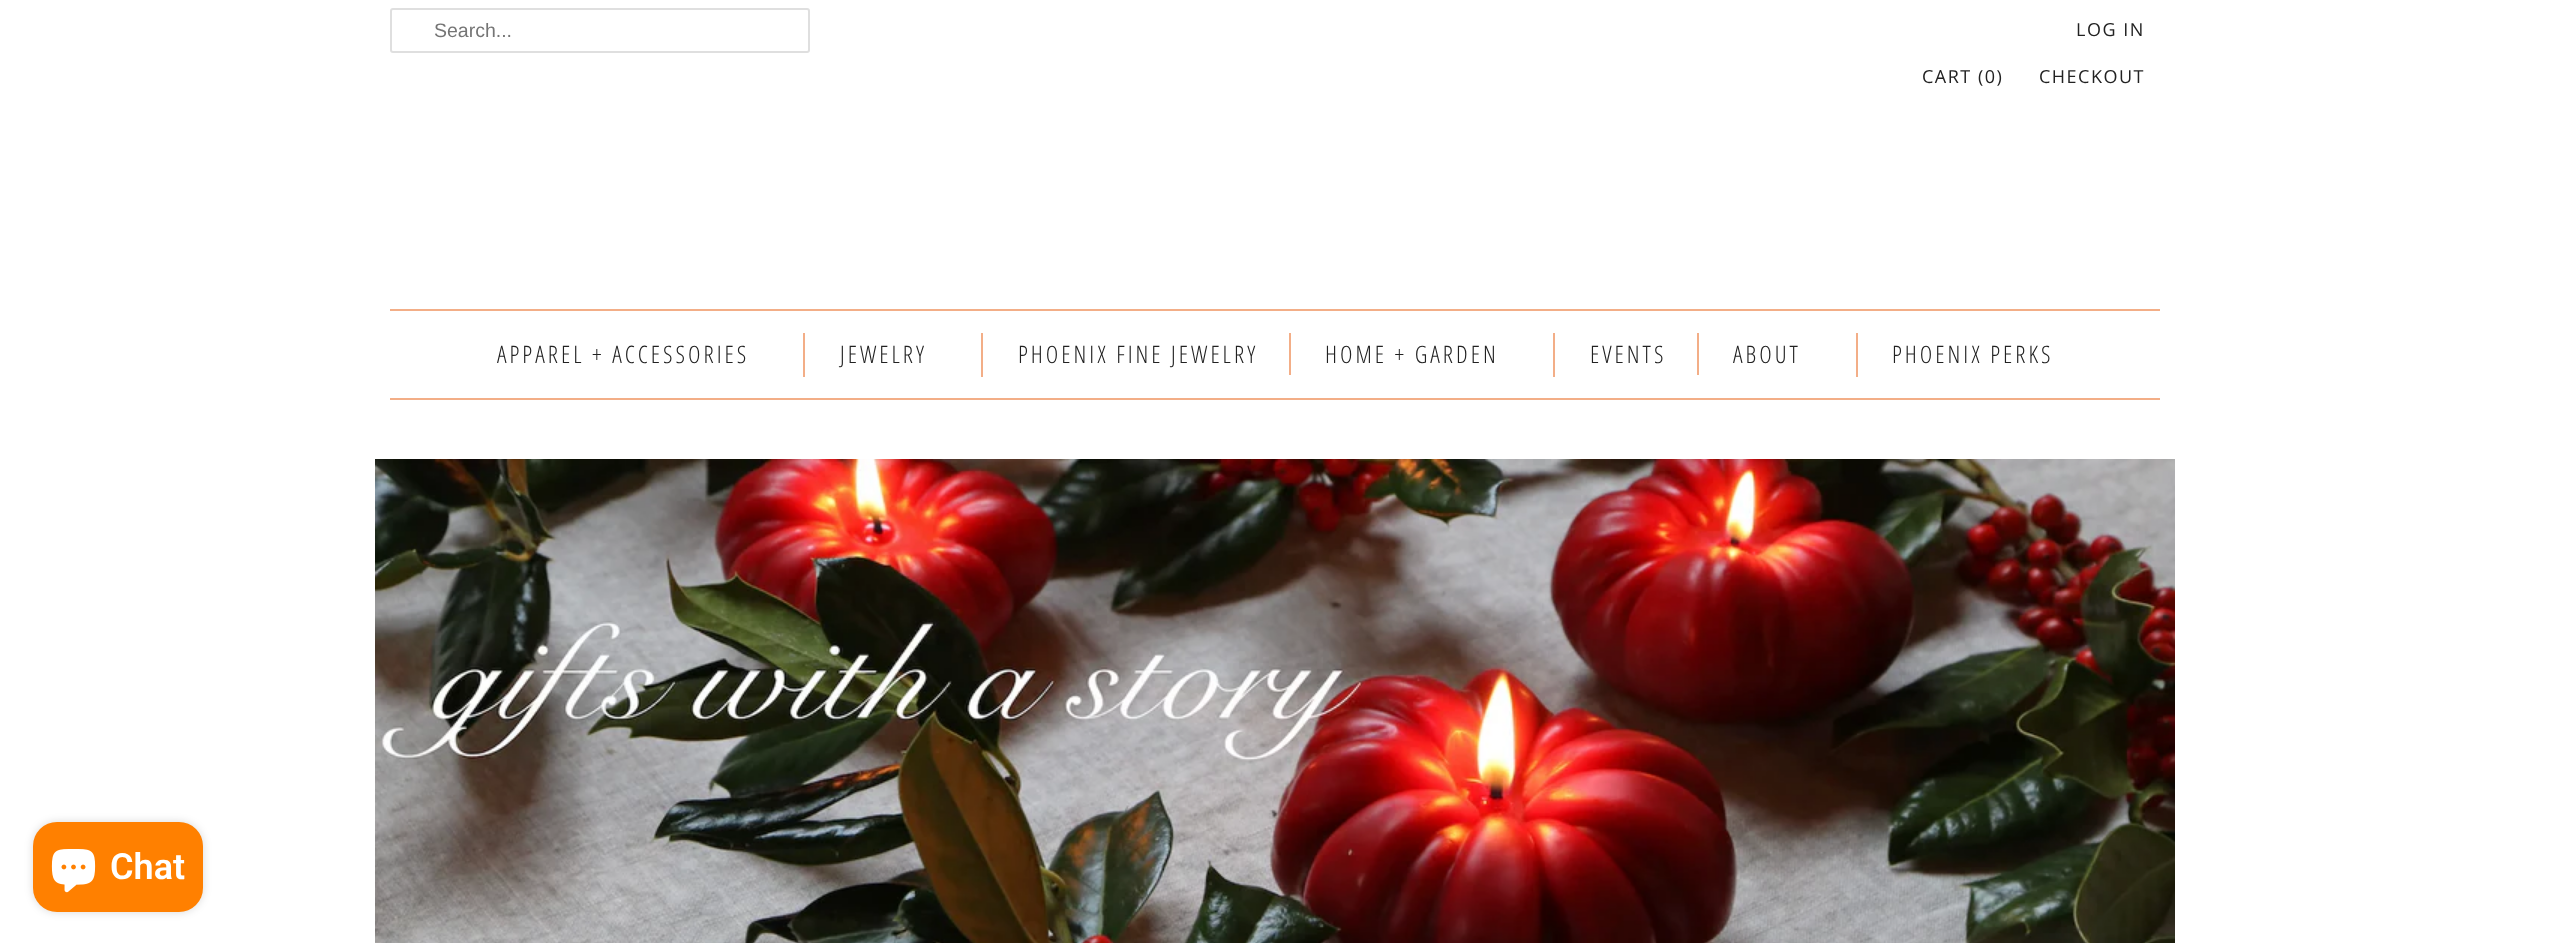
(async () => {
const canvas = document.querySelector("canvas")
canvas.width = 2550
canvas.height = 943
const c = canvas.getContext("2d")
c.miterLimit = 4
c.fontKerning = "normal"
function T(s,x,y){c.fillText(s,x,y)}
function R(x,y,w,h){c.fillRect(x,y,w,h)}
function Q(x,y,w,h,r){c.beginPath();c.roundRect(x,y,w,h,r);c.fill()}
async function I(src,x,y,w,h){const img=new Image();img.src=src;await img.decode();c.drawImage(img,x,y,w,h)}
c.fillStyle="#fff"
R(0,0,2550,943)
c.beginPath()
c.roundRect(391,9,418,43,2)
c.strokeStyle="#dfdfdf"
c.lineWidth=2
c.stroke()
c.font="19.5px Liberation Sans"
c.fillStyle="#757575"
T("Search...",434,37)
c.letterSpacing="1.5px"
c.font="18px Open Sans"
c.fillStyle="#222"
T("LOG IN",2076,36)
T("CART (0)",1922,83)
T("CHECKOUT",2039,83)
c.fillStyle="#f3ae87"
R(390,309,1770,2)
R(390,398,1770,2)
R(803,333,2,44)
c.letterSpacing="3px"
c.font="300 24px Open Sans Condensed"
c.fillStyle="#222"
T("APPAREL + ACCESSORIES",497,363)
c.fillStyle="#f3ae87"
R(981,333,2,44)
c.fillStyle="#222"
T("JEWELRY",840,363)
c.fillStyle="#f3ae87"
R(1289,333,2,42)
c.fillStyle="#222"
T("PHOENIX FINE JEWELRY",1018,363)
c.fillStyle="#f3ae87"
R(1553,333,2,44)
c.fillStyle="#222"
T("HOME + GARDEN",1325,363)
c.fillStyle="#f3ae87"
R(1697,333,2,42)
c.fillStyle="#222"
T("EVENTS",1590,363)
c.fillStyle="#f3ae87"
R(1856,333,2,44)
c.fillStyle="#222"
T("ABOUT",1733,363)
T("PHOENIX PERKS",1892,363)
c.fillStyle="#00000026"
c.filter="blur(4px)"
c.beginPath()
c.roundRect(33,822,170,90,24)
c.fill()
c.filter="none"
c.fillStyle="#ff8000"
Q(33,822,170,90,24)
await I("1.png",51,849,45,44)
c.letterSpacing="0px"
c.font="600 36px Roboto"
c.fillStyle="#fff"
T("Chat",110,879)
await I("2.png",375,459,1800,484)
})()
